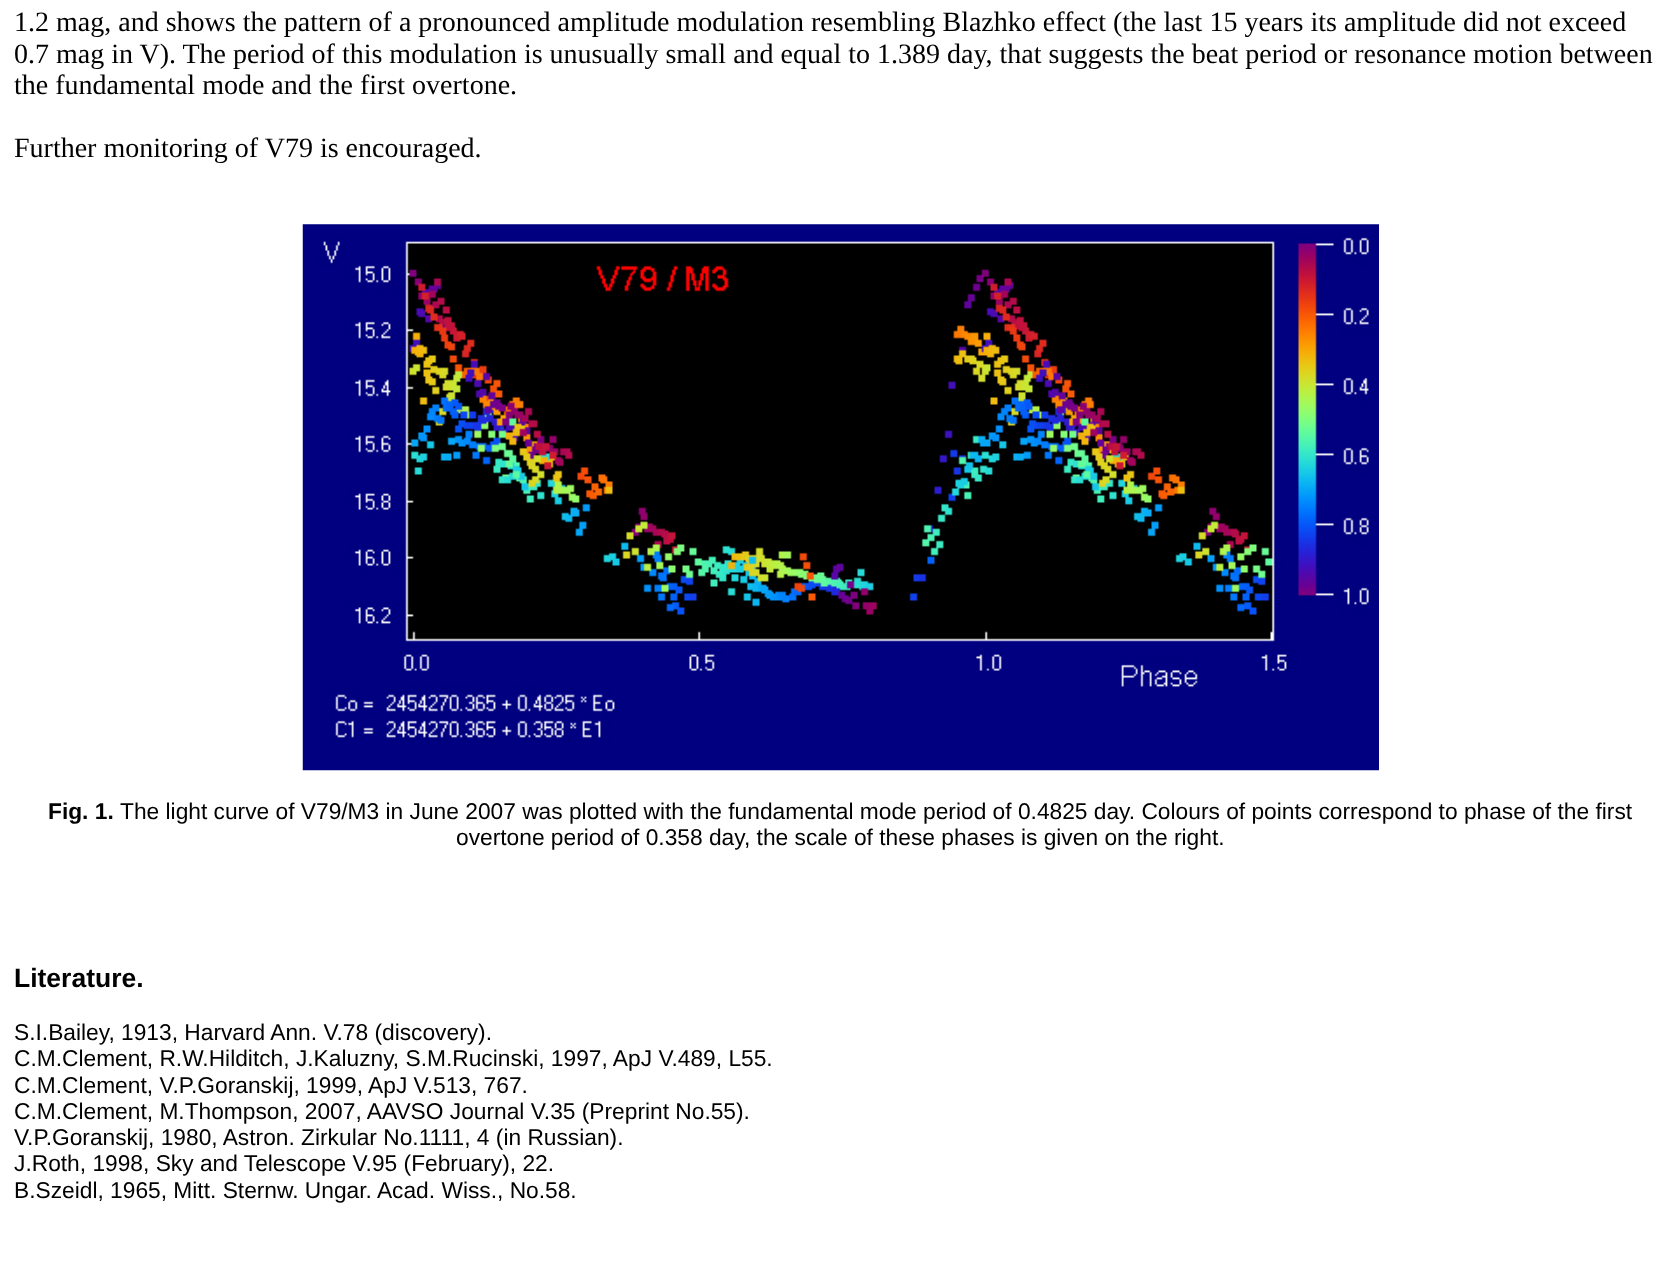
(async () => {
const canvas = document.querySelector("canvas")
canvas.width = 1680
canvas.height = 1263
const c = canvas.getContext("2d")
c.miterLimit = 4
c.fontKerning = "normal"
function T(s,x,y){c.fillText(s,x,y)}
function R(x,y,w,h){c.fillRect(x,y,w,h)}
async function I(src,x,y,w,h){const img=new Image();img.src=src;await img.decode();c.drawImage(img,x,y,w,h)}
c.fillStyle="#fff"
R(0,0,1680,1263)
c.font="28px Liberation Serif"
c.fillStyle="#000"
T("1.2 mag, and shows the pattern of a pronounced amplitude modulation resembling Blazhko effect (the last 15 years its amplitude did not exceed",14,31)
T("0.7 mag in V). The period of this modulation is unusually small and equal to 1.389 day, that suggests the beat period or resonance motion between",14,63)
T("the fundamental mode and the first overtone.",14,94)
T("Further monitoring of V79 is encouraged.",14,157)
await I("1.png",302,224,1077,547)
c.font="bold 22.75px Liberation Sans"
T("Fig. 1.",48,819)
c.font="22.75px Liberation Sans"
T("The light curve of V79/M3 in June 2007 was plotted with the fundamental mode period of 0.4825 day. Colours of points correspond to phase of the first",120,819)
T("overtone period of 0.358 day, the scale of these phases is given on the right.",456,845)
c.font="bold 26.5px Liberation Sans"
T("Literature.",14,987)
c.font="22.75px Liberation Sans"
T("S.I.Bailey, 1913, Harvard Ann. V.78 (discovery).",14,1040)
T("C.M.Clement, R.W.Hilditch, J.Kaluzny, S.M.Rucinski, 1997, ApJ V.489, L55.",14,1066)
T("C.M.Clement, V.P.Goranskij, 1999, ApJ V.513, 767.",14,1093)
T("C.M.Clement, M.Thompson, 2007, AAVSO Journal V.35 (Preprint No.55).",14,1119)
T("V.P.Goranskij, 1980, Astron. Zirkular No.1111, 4 (in Russian).",14,1145)
T("J.Roth, 1998, Sky and Telescope V.95 (February), 22.",14,1171)
T("B.Szeidl, 1965, Mitt. Sternw. Ungar. Acad. Wiss., No.58.",14,1198)
})()
